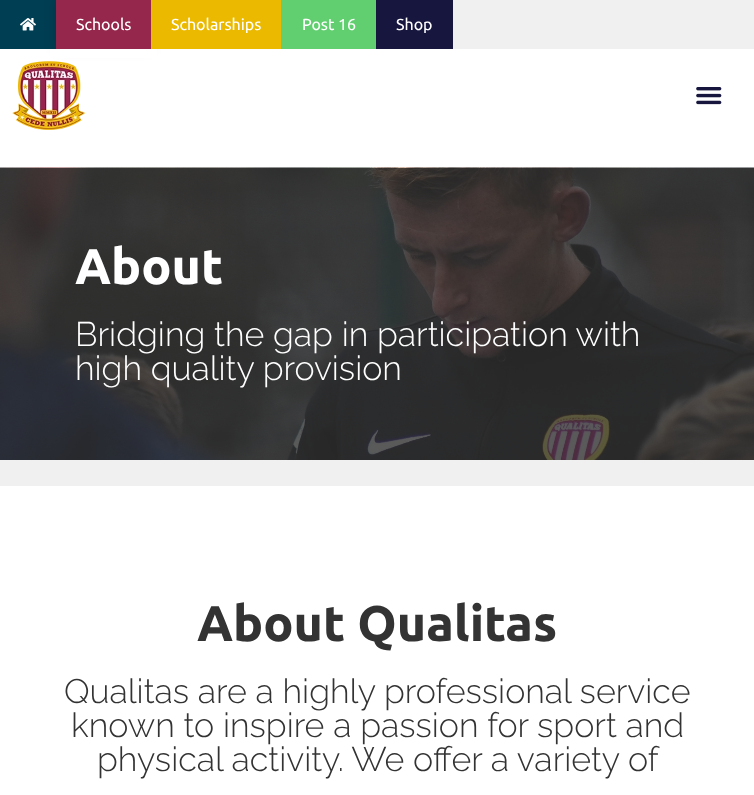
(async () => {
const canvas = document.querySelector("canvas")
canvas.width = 754
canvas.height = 795
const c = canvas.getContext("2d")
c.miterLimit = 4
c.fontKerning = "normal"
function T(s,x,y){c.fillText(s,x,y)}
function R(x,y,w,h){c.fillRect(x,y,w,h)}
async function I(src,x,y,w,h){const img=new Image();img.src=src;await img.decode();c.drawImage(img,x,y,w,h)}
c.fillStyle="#fff"
R(0,0,754,795)
c.fillStyle="#f0f0f0"
R(453,0,301,49)
c.fillStyle="#003e53"
R(0,0,56,49)
await I("1.png",20,18,16,13)
c.fillStyle="#00000026"
c.filter="blur(6px)"
c.beginPath()
c.rect(56,0,95,49)
c.fill()
c.filter="none"
c.fillStyle="#95264c"
R(56,0,95,49)
c.font="16px Ubuntu"
c.fillStyle="#fff"
T("Schools",76,30)
c.fillStyle="#eab900"
R(151,0,130,49)
c.fillStyle="#fff"
T("Scholarships",171,30)
c.fillStyle="#61ce70"
R(281,0,95,49)
c.fillStyle="#fff"
T("Post 16",302,30)
c.fillStyle="#16163f"
R(376,0,77,49)
c.fillStyle="#fff"
T("Shop",396,30)
R(50,49,107,9)
await I("2.png",12,61,73,69)
await I("3.png",696,87,26,18)
await I("4.png",0,167,754,293)
c.font="bold 50px Ubuntu"
T("About",75,284)
c.font="300 34px Raleway"
T("Bridging the gap in participation with",75,346)
T("high quality provision",75,380)
c.fillStyle="#f0f0f0"
R(0,460,754,26)
c.font="bold 50px Ubuntu"
c.fillStyle="#333"
T("About Qualitas",197,641)
c.font="300 34px Raleway"
T("Qualitas are a highly professional service",64,703)
T("known to inspire a passion for sport and",71,737)
T("physical activity. We offer a variety of",97,771)
})()
